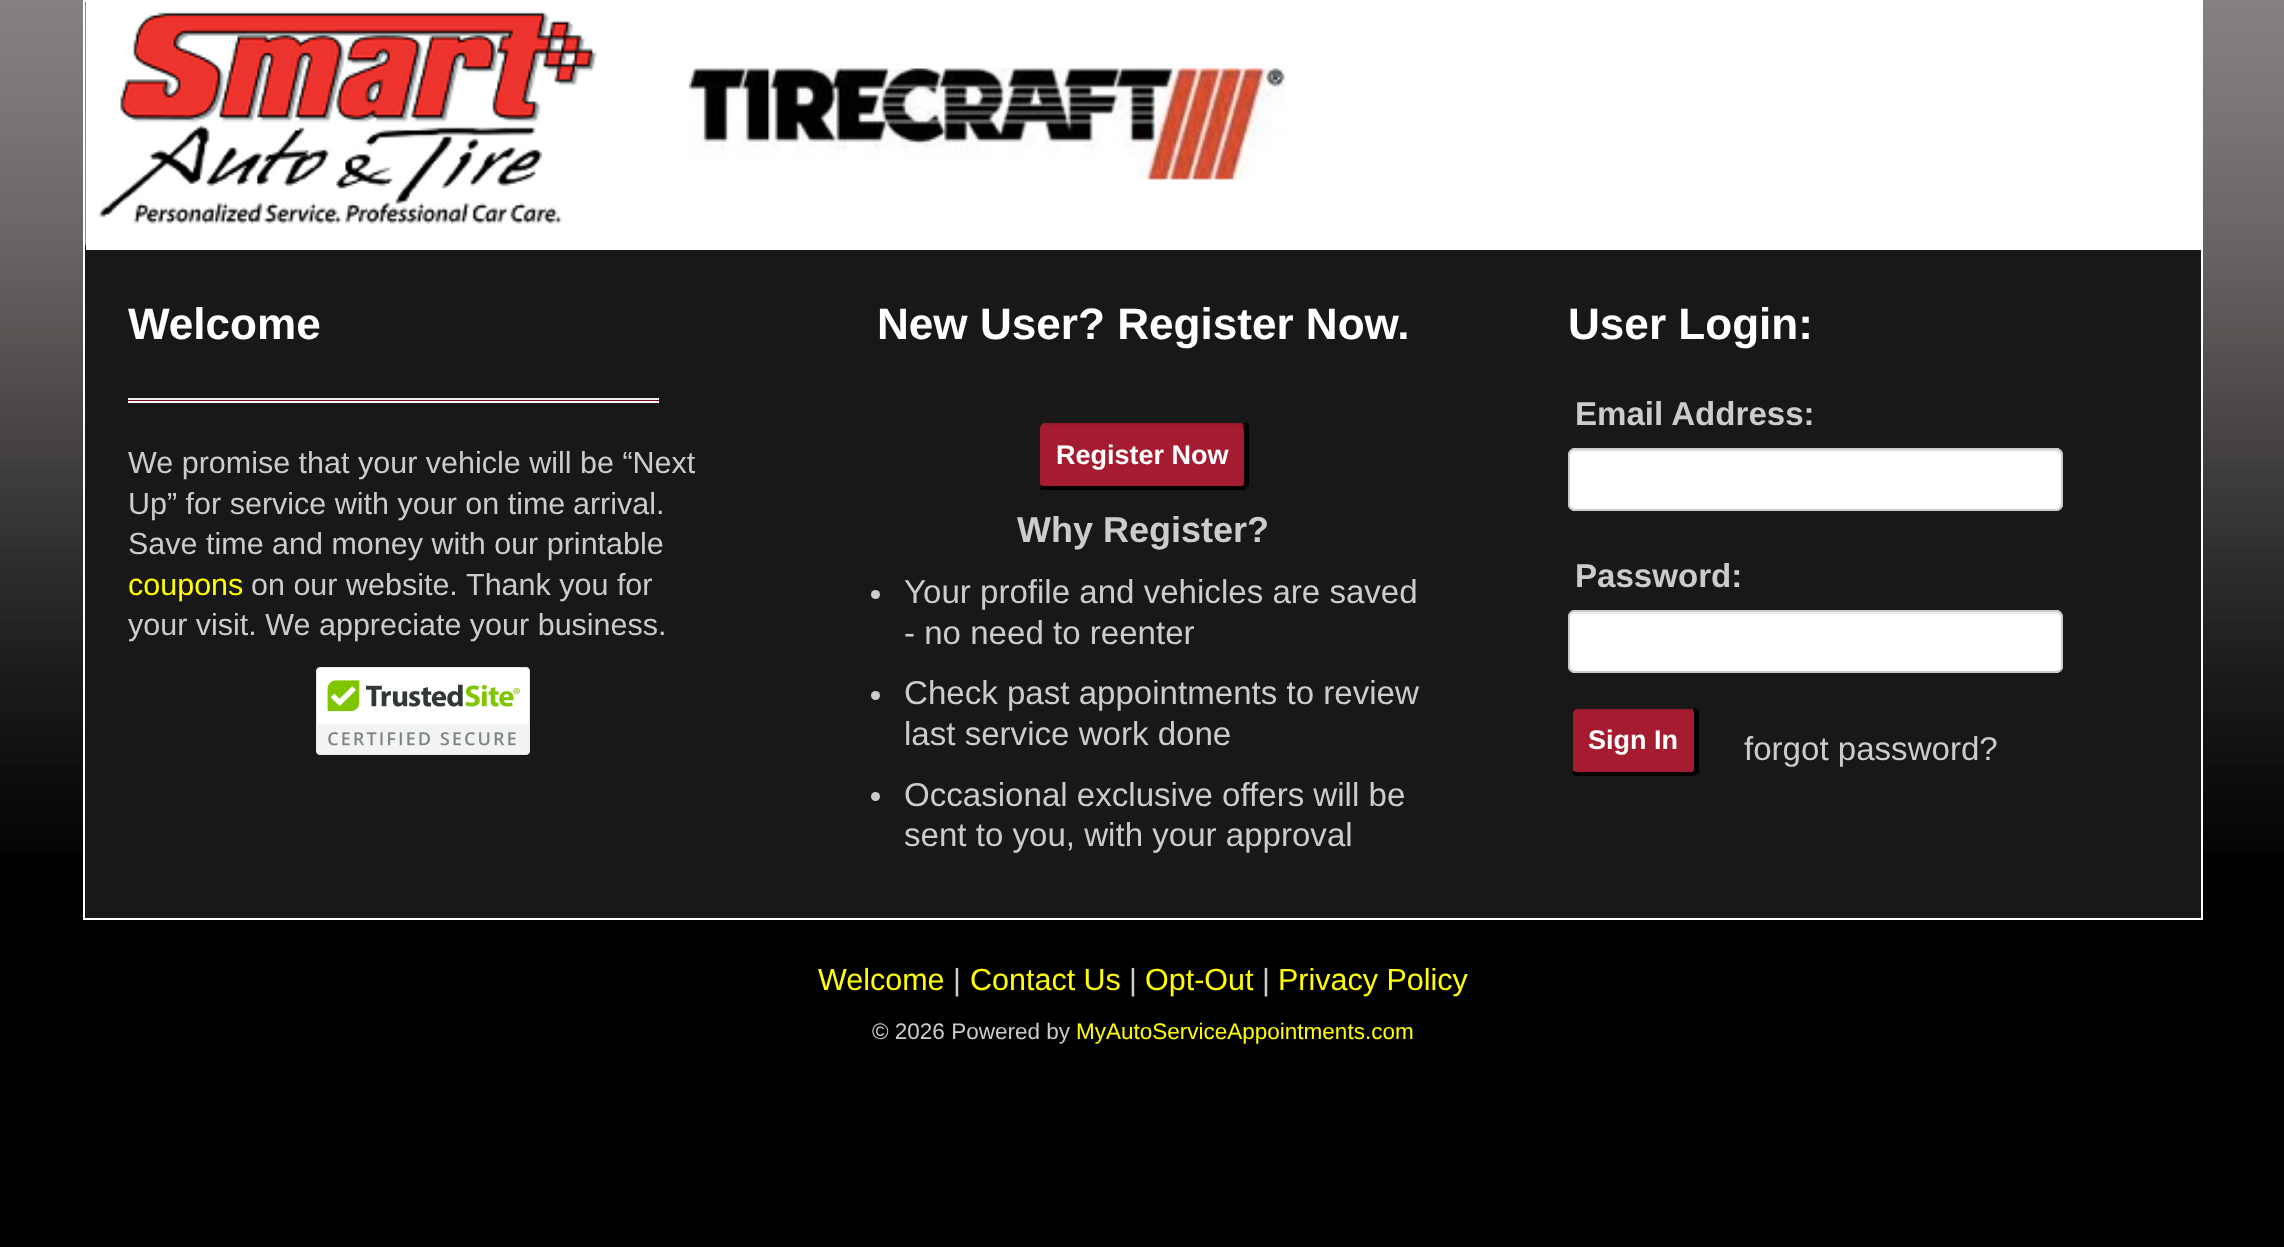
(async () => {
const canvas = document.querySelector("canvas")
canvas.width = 2284
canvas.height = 1247
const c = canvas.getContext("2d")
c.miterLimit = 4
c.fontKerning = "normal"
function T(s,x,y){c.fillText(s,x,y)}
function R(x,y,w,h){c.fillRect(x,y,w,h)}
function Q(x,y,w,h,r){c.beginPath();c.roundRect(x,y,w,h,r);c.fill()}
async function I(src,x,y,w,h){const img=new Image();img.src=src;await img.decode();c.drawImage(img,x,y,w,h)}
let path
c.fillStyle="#000"
R(0,0,2284,1247)
await I("1.png",0,0,2284,853)
c.fillStyle="#181818"
c.beginPath()
c.rect(84,1,2118,918)
c.fill()
c.strokeStyle="#fff"
c.lineWidth=2
c.stroke()
c.fillStyle="#fff"
R(86,2,2115,248)
await I("2.png",85,2,1200,244)
c.font="bold 44.1px Liberation Sans"
T("Welcome",128,339)
c.fillStyle="#840018"
R(128,400,531,1)
c.fillStyle="#eee"
R(128,398,531,2)
c.fillStyle="#fff"
R(128,401,531,2)
c.font="30.5px Liberation Sans"
c.fillStyle="#ccc"
T("We promise that your vehicle will be “Next",128,473)
T("Up” for service with your on time",128,514)
T("arrival.",573,514)
T("Save time and money with our printable",128,554)
c.fillStyle="#ff0"
T("coupons",128,595)
c.fillStyle="#ccc"
T("on our website.",251,595)
T("Thank you for",466,595)
T("your visit. We appreciate your business.",128,635)
await I("3.png",316,667,214,88)
c.font="bold 44.1px Liberation Sans"
c.fillStyle="#fff"
T("New User? Register Now.",877,339)
c.fillStyle="#a51c30"
path = new Path2D("M1044 423h198c1 0 2 2 2 5v56c0 1-1 2-2 2h-198c-2 0-4-1-4-2v-56c0-3 2-5 4-5z")
c.fill(path)
c.fillStyle="#00000012"
path = new Path2D("M1044 425h198c1 0 2 2 2 5v55v-39c0-32 5-23-35-23h-165c-7 0-4 11-4 14v28c0 2-2 18 0 20v-55c0-3 2-5 4-5z")
c.fill(path)
c.fillStyle="#181818"
path = new Path2D("M1044 421c-2 0-4 1-5 2l2 2c1-1 2-2 3-2h198l1 1l3-2l-4-1z")
c.fill(path)
c.fillStyle="#000"
path = new Path2D("M1246 422c1 1 3 3 3 4v60l-2 2l-3-3c0-1 1-58-1-61z")
c.fill(path)
path = new Path2D("M1247 488c-2 1-3 2-5 2h-198c-2 0-4-1-5-2l1-3c1 1 3 1 4 1h198l1-1z")
c.fill(path)
c.fillStyle="#181818"
path = new Path2D("M1037 426l2-3l2 2c-2 3-1 11-1 12v48l-1 3l-2-2z")
c.fill(path)
c.font="bold 27px Liberation Sans"
c.fillStyle="#fff"
T("Register Now",1056,464)
c.font="bold 36px Liberation Sans"
c.fillStyle="#ccc"
T("Why Register?",1017,542)
c.beginPath()
c.arc(875.5,594.5,4.5,0,7)
c.fill()
c.font="33.1px Liberation Sans"
T("Your profile and vehicles are saved",904,603)
T("- no need to reenter",904,644)
c.beginPath()
c.arc(875.5,695.5,4.5,0,7)
c.fill()
T("Check past appointments to review",904,704)
T("last service work done",904,745)
c.beginPath()
c.arc(875.5,796.5,4.5,0,7)
c.fill()
T("Occasional exclusive offers will be",904,806)
T("sent to you, with your approval",904,846)
c.font="bold 44.1px Liberation Sans"
c.fillStyle="#fff"
T("User Login:",1568,339)
c.font="bold 33.1px Liberation Sans"
c.fillStyle="#ccc"
T("Email Address:",1575,425)
c.fillStyle="#fff"
Q(1568,448,495,63,7)
c.fillStyle="#ececec"
path = new Path2D("M1575 452h481c3 0 5 2 5 5v-2c0-3-2-5-5-5h-480c-2 0-4 2-5 4c1-1 3-2 4-2z")
c.fill(path)
c.beginPath()
c.roundRect(1569,449,493,61,6)
c.strokeStyle="#ccc"
c.stroke()
c.fillStyle="#ccc"
T("Password:",1575,587)
c.fillStyle="#fff"
Q(1568,610,495,63,7)
c.fillStyle="#ececec"
path = new Path2D("M1575 614h481c3 0 5 2 5 5v-2c0-3-2-5-5-5h-480c-2 0-4 2-5 4c1-1 3-2 4-2z")
c.fill(path)
c.beginPath()
c.roundRect(1569,611,493,61,6)
c.stroke()
c.fillStyle="#a51c30"
path = new Path2D("M1577 709h115c1 0 2 2 2 4v57c0 1-1 2-2 2h-115c-2 0-4-1-4-2v-57c0-2 2-4 4-4z")
c.fill(path)
c.fillStyle="#00000012"
path = new Path2D("M1577 711h115c1 0 2 2 2 5v55v-58c0-10-16-4-21-4h-77c-28 0-23-4-23 23v38v-54c0-3 2-5 4-5z")
c.fill(path)
c.fillStyle="#181818"
path = new Path2D("M1577 709l-3 1l-2-2l3-2h119l2 2l-3 1h-1z")
c.fill(path)
c.fillStyle="#000"
path = new Path2D("M1699 772l-2 2l-3-3c0-1 0-53 0-59l-1-3l3-1l3 3z")
c.fill(path)
path = new Path2D("M1697 774l-4 2h-117c-1 0-3-1-4-2l1-3l3 1h116l2-1z")
c.fill(path)
c.fillStyle="#181818"
path = new Path2D("M1570 711l2-3l2 2l-1 3v58l-1 3l-2-2z")
c.fill(path)
c.font="bold 27px Liberation Sans"
c.fillStyle="#fff"
T("Sign In",1588,749)
c.font="33.1px Liberation Sans"
c.fillStyle="#ccc"
T("forgot password?",1744,760)
c.font="30.5px Liberation Sans"
c.fillStyle="#ff0"
T("Welcome",818,990)
c.fillStyle="#ccc"
T("|",953,990)
c.fillStyle="#ff0"
T("Contact Us",970,990)
c.fillStyle="#ccc"
T("|",1129,990)
c.fillStyle="#ff0"
T("Opt-Out",1145,990)
c.fillStyle="#ccc"
T("|",1262,990)
c.fillStyle="#ff0"
T("Privacy Policy",1278,990)
c.font="22.5px Liberation Sans"
c.fillStyle="#ccc"
T("© 2026 Powered by",872,1039)
c.fillStyle="#ff0"
T("MyAutoServiceAppointments.com",1076,1039)
})()
